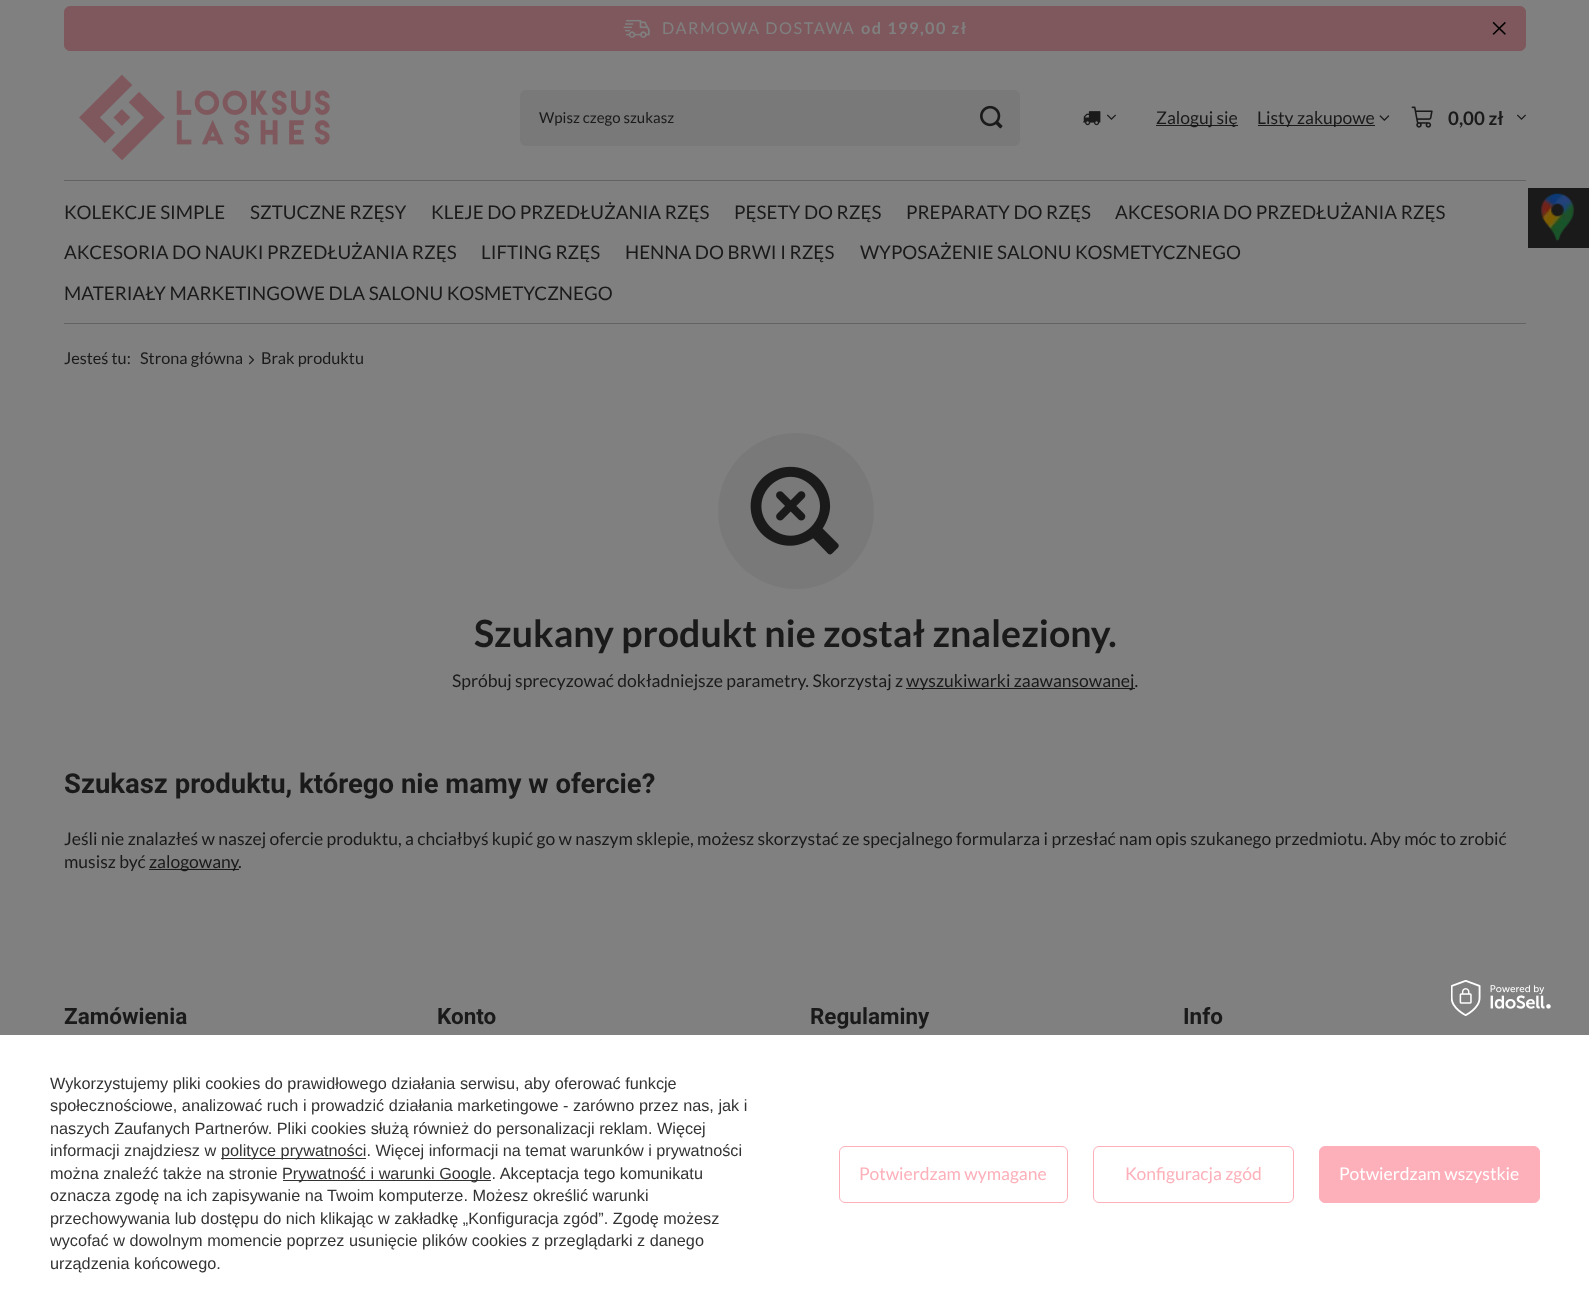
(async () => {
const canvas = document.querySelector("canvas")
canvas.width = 1589
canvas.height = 1312
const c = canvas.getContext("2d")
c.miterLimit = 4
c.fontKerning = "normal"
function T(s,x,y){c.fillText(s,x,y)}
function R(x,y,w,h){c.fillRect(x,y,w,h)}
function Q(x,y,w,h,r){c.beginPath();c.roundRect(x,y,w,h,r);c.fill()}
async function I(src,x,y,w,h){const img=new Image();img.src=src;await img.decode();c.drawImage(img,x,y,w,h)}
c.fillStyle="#808080"
R(0,0,1589,1312)
c.fillStyle="#7f585d"
c.beginPath()
c.roundRect(64.5,6.5,1461,44,5.5)
c.fill()
c.strokeStyle="#7f585d"
c.stroke()
await I("1.png",623,19,27,19)
c.letterSpacing="1.5px"
c.font="16.25px Lato"
c.fillStyle="#808080"
T("DARMOWA DOSTAWA",662,34)
c.font="bold 16.25px Lato"
T("od 199,00 zł",861,34)
await I("2.png",1492,21,14,14)
await I("3.png",79,74,251,87)
c.fillStyle="#797979"
Q(520,90,500,56,6)
c.letterSpacing="0px"
c.font="15px Lato"
c.fillStyle="#1a1a1a"
T("Wpisz czego szukasz",539,123)
await I("4.png",980,105,23,24)
await I("5.png",1083,111,18,15)
await I("6.png",1107,114,9,6)
R(1156,125,82,1)
c.font="17.5px Lato"
T("Zaloguj się",1156,124)
R(1258,125,117,1)
T("Listy zakupowe",1257,124)
await I("7.png",1379,115,11,6)
await I("8.png",1411,106,22,22)
c.font="bold 18.75px Lato"
T("0,00 zł",1448,125)
await I("6.png",1517,114,9,6)
c.fillStyle="#626464"
R(64,180,1462,1)
R(64,323,1462,1)
c.font="18.75px Lato"
c.fillStyle="#1a1a1a"
T("KOLEKCJE SIMPLE",64,219)
T("SZTUCZNE RZĘSY",250,219)
T("KLEJE DO PRZEDŁUŻANIA RZĘS",431,219)
T("PĘSETY DO RZĘS",734,219)
T("PREPARATY DO RZĘS",906,219)
T("AKCESORIA DO PRZEDŁUŻANIA RZĘS",1115,219)
T("AKCESORIA DO NAUKI PRZEDŁUŻANIA RZĘS",64,259)
T("LIFTING RZĘS",481,259)
T("HENNA DO BRWI I RZĘS",625,259)
T("WYPOSAŻENIE SALONU KOSMETYCZNEGO",860,259)
T("MATERIAŁY MARKETINGOWE DLA SALONU KOSMETYCZNEGO",64,300)
c.font="16.25px Lato"
T("Jesteś tu:",64,364)
T("Strona główna",140,364)
await I("9.png",248,355,7,10)
T("Brak produktu",261,364)
c.fillStyle="#797979"
c.beginPath()
c.arc(796,511,78,0,7)
c.fill()
await I("10.png",750,466,89,89)
c.font="bold 37.5px Lato"
c.fillStyle="#1a1a1a"
T("Szukany produkt nie został znaleziony.",474,647)
c.font="17.5px Lato"
T("Spróbuj sprecyzować dokładniejsze parametry. Skorzystaj z",452,687)
R(906,688,229,1)
T("wyszukiwarki zaawansowanej.",906,687)
c.font="bold 27.5px Roboto"
T("Szukasz produktu, którego nie mamy w ofercie?",64,793)
c.font="17.5px Lato"
T("Jeśli nie znalazłeś w naszej ofercie produktu, a chciałbyś kupić go w naszym sklepie, możesz skorzystać ze specjalnego formularza i przesłać nam opis szukanego przedmiotu. Aby móc to zrobić",64,845)
T("musisz być",64,868)
R(149,869,90,1)
T("zalogowany",149,868)
T(".",238,868)
R(1528,188,61,60)
await I("11.png",1541,193,33,48)
c.font="bold 22.5px Roboto"
T("Zamówienia",64,1024)
T("Konto",437,1024)
T("Regulaminy",810,1024)
T("Info",1183,1024)
c.fillStyle="#fff"
R(0,1035,1589,277)
await I("12.png",1451,980,100,36)
c.font="16.25px Liberation Sans"
c.fillStyle="#333"
T("Wykorzystujemy pliki cookies do prawidłowego działania serwisu, aby oferować funkcje",50,1089)
T("społecznościowe, analizować ruch i prowadzić działania marketingowe - zarówno przez nas, jak i",50,1111)
T("naszych Zaufanych Partnerów. Pliki cookies służą również do personalizacji reklam. Więcej",50,1134)
T("informacji znajdziesz w",50,1156)
R(221,1158,145,1)
T("polityce prywatności. Więcej informacji na temat warunków i prywatności",221,1156)
T("można znaleźć także na stronie",50,1179)
R(283,1180,208,1)
T("Prywatność i warunki Google. Akceptacja tego komunikatu",282,1179)
T("oznacza zgodę na ich zapisywanie na Twoim komputerze. Możesz określić warunki",50,1201)
T("przechowywania lub dostępu do nich klikając w zakładkę „Konfiguracja zgód”. Zgodę możesz",50,1224)
T("wycofać w dowolnym momencie poprzez usunięcie plików cookies z przeglądarki z danego",50,1246)
T("urządzenia końcowego.",50,1269)
c.beginPath()
c.roundRect(839.5,1146.5,228,56,5.5)
c.strokeStyle="#fdb0ba"
c.stroke()
c.font="17.5px Lato"
c.fillStyle="#fdb0ba"
T("Potwierdzam wymagane",859,1180)
c.beginPath()
c.roundRect(1093.5,1146.5,200,56,5.5)
c.stroke()
T("Konfiguracja zgód",1125,1180)
c.beginPath()
c.roundRect(1319.5,1146.5,220,56,5.5)
c.fill()
c.stroke()
c.fillStyle="#fff"
T("Potwierdzam wszystkie",1339,1180)
})()
